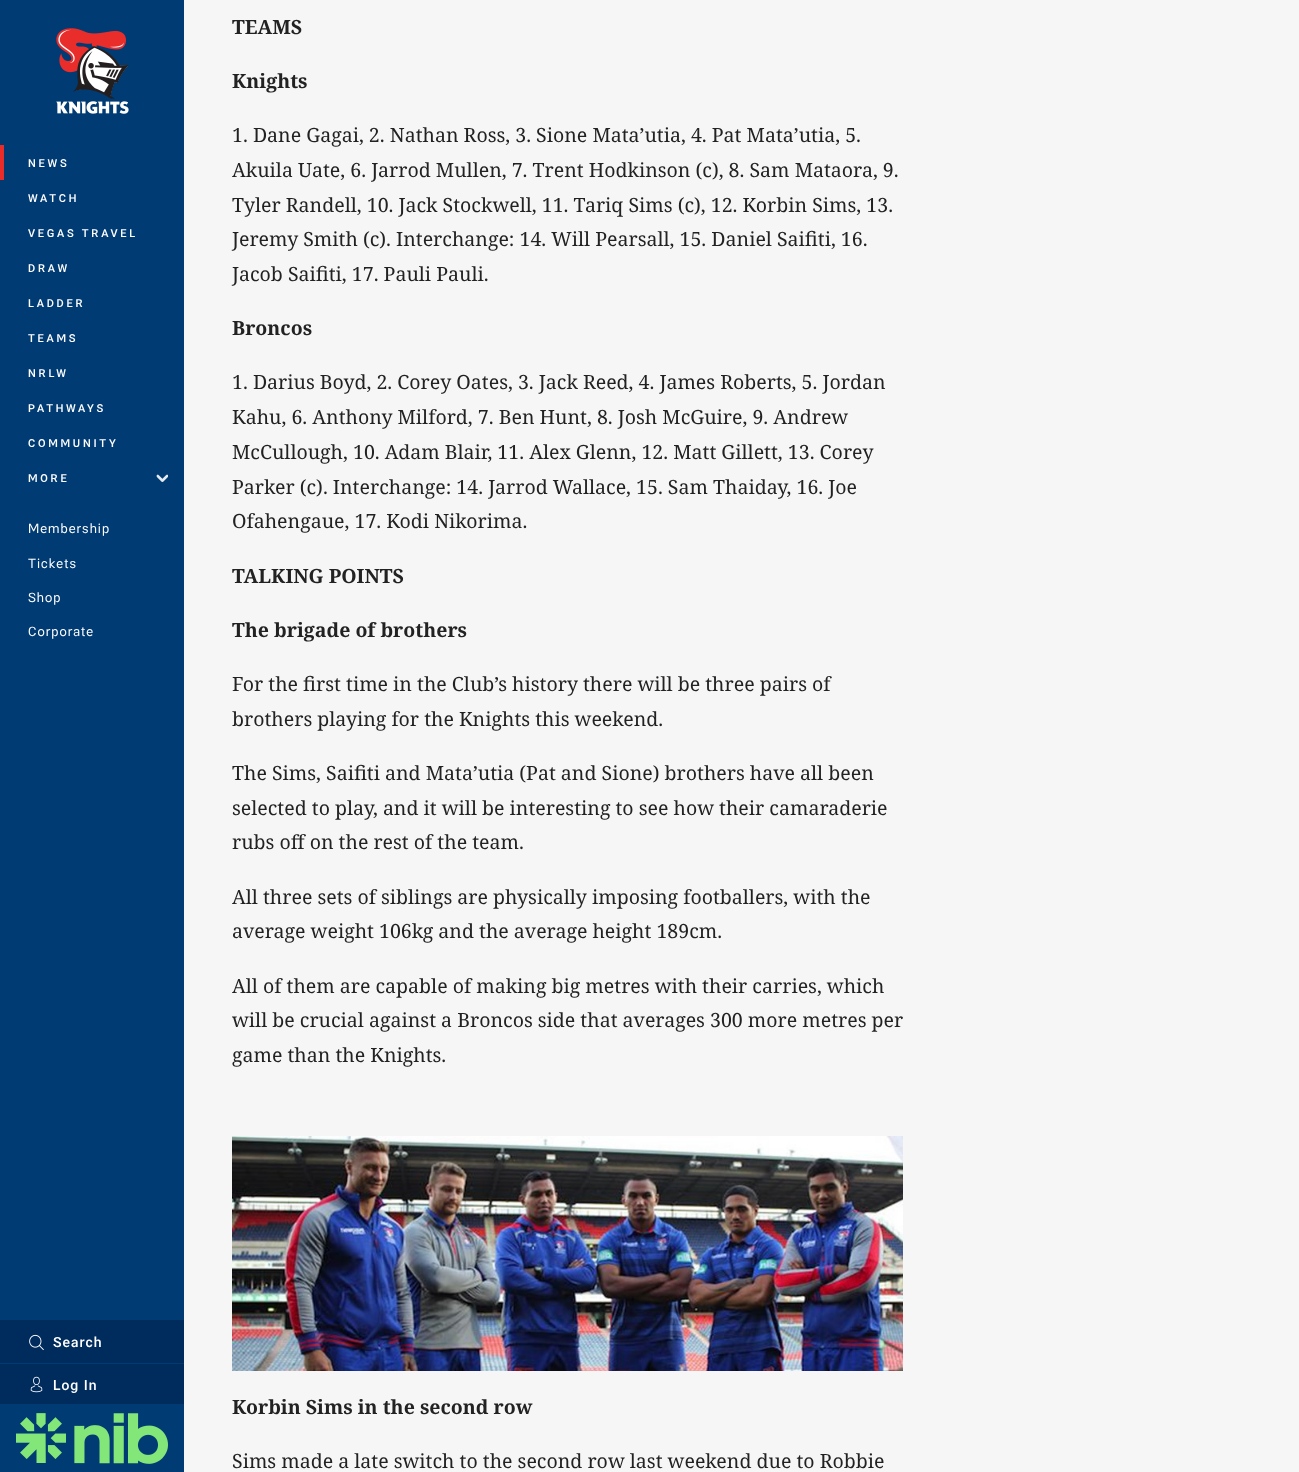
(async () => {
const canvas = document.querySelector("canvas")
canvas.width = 1299
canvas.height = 1472
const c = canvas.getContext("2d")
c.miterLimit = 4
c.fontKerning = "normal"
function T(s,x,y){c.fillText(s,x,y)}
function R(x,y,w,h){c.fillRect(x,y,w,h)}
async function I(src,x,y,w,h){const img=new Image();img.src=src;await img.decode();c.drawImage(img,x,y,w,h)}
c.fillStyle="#f6f6f6"
R(0,0,1299,1472)
c.fillStyle="#003b73"
R(0,0,184,1472)
await I("1.png",56,28,73,86)
c.fillStyle="#e82c2a"
R(0,145,4,35)
c.letterSpacing="2.75px"
c.font="500 11px 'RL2'"
c.fillStyle="#fff"
T("NEWS",28,167)
T("WATCH",28,202)
T("VEGAS TRAVEL",28,237)
T("DRAW",28,272)
T("LADDER",28,307)
T("TEAMS",28,342)
T("NRLW",28,377)
T("PATHWAYS",28,412)
T("COMMUNITY",28,447)
T("MORE",28,482)
await I("2.png",156,474,12,8)
c.letterSpacing="1px"
c.font="13px 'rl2'"
T("Membership",28,533)
T("Tickets",28,568)
T("Shop",28,602)
T("Corporate",28,636)
c.fillStyle="#002b5d"
R(0,1320,184,43)
await I("3.png",29,1334,15,17)
c.font="500 14px 'RL2'"
c.fillStyle="#fff"
T("Search",53,1347)
c.fillStyle="#002b5d"
R(0,1364,184,40)
await I("4.png",30,1376,13,17)
c.fillStyle="#fff"
T("Log In",53,1390)
await I("5.png",16,1413,152,51)
c.letterSpacing="0px"
c.font="bold 19.55px Noto Serif"
c.fillStyle="#222"
T("TEAMS",232,34)
T("Knights",232,88)
c.font="19.55px Noto Serif"
T("1. Dane Gagai, 2. Nathan Ross, 3. Sione Mata’utia, 4. Pat Mata’utia, 5.",232,142)
T("Akuila Uate, 6. Jarrod Mullen, 7. Trent Hodkinson (c), 8. Sam Mataora, 9.",232,177)
T("Tyler Randell, 10. Jack Stockwell, 11. Tariq Sims (c), 12. Korbin Sims, 13.",232,212)
T("Jeremy Smith (c). Interchange: 14. Will Pearsall, 15. Daniel Saifiti, 16.",232,246)
T("Jacob Saifiti, 17. Pauli Pauli.",232,281)
c.font="bold 19.55px Noto Serif"
T("Broncos",232,335)
c.font="19.55px Noto Serif"
T("1. Darius Boyd, 2. Corey Oates, 3. Jack Reed, 4. James Roberts, 5. Jordan",232,389)
T("Kahu, 6. Anthony Milford, 7. Ben Hunt, 8. Josh McGuire, 9. Andrew",232,424)
T("McCullough, 10. Adam Blair, 11. Alex Glenn, 12. Matt Gillett, 13. Corey",232,459)
T("Parker (c). Interchange: 14. Jarrod Wallace, 15. Sam Thaiday, 16. Joe",232,494)
T("Ofahengaue, 17. Kodi Nikorima.",232,528)
c.font="bold 19.55px Noto Serif"
T("TALKING POINTS",232,583)
T("The brigade of brothers",232,637)
c.font="19.55px Noto Serif"
T("For the first time in the Club’s history there will be three pairs of",232,691)
T("brothers playing for the Knights this weekend.",232,726)
T("The Sims, Saifiti and Mata’utia (Pat and Sione) brothers have all been",232,780)
T("selected to play, and it will be interesting to see how their camaraderie",232,815)
T("rubs off on the rest of the team.",232,849)
T("All three sets of siblings are physically imposing footballers, with the",232,904)
T("average weight 106kg and the average height 189cm.",232,938)
T("All of them are capable of making big metres with their carries, which",232,993)
T("will be crucial against a Broncos side that averages 300 more metres per",232,1027)
T("game than the Knights.",232,1062)
await I("6.png",232,1136,671,235)
c.font="bold 19.55px Noto Serif"
T("Korbin Sims in the second row",232,1414)
c.font="19.55px Noto Serif"
T("Sims made a late switch to the second row last weekend due to Robbie",232,1468)
})()
